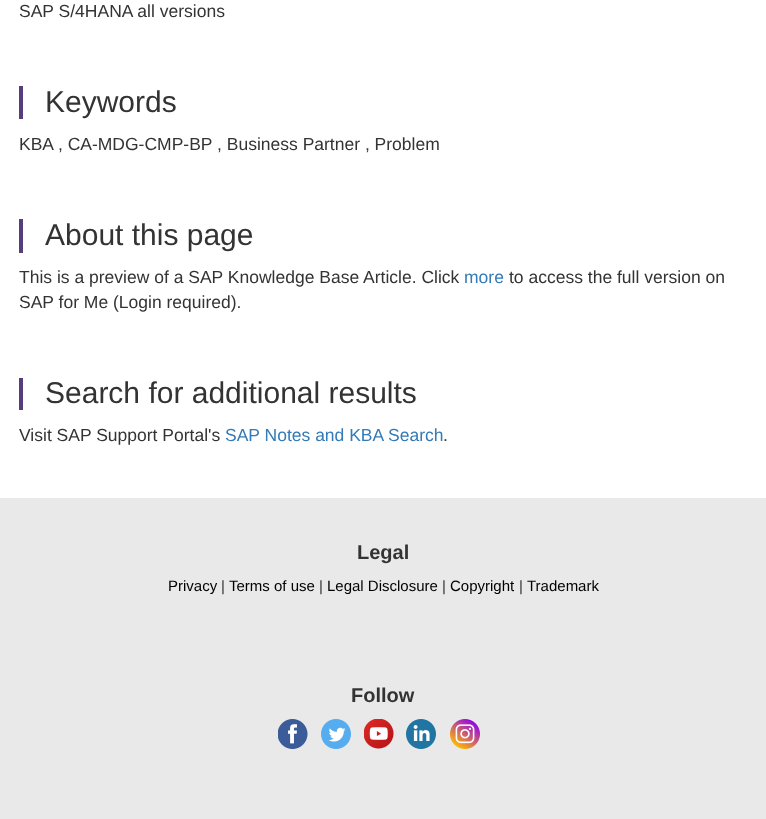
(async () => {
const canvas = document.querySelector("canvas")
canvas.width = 766
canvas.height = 819
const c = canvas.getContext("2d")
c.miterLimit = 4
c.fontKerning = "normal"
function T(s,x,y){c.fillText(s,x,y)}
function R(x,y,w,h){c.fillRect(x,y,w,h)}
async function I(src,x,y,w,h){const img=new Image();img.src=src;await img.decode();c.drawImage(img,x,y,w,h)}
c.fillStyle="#fff"
R(0,0,766,819)
c.font="17.5px Liberation Sans"
c.fillStyle="#333"
T("SAP S/4HANA all versions",19,17)
c.fillStyle="#563d7c"
R(19,86,4,33)
c.font="30px Liberation Sans"
c.fillStyle="#333"
T("Keywords",45,112)
c.font="17.5px Liberation Sans"
T("KBA , CA-MDG-CMP-BP , Business Partner , Problem",19,150)
c.fillStyle="#563d7c"
R(19,219,4,34)
c.font="30px Liberation Sans"
c.fillStyle="#333"
T("About this page",45,245)
c.font="17.5px Liberation Sans"
T("This is a preview of a SAP Knowledge Base Article. Click",19,283)
c.fillStyle="#337ab7"
T("more",464,283)
c.fillStyle="#333"
T("to access the full version on",509,283)
T("SAP for Me (Login required).",19,308)
c.fillStyle="#563d7c"
R(19,378,4,32)
c.font="30px Liberation Sans"
c.fillStyle="#333"
T("Search for additional results",45,403)
c.font="17.5px Liberation Sans"
T("Visit SAP Support Portal's",19,441)
c.fillStyle="#337ab7"
T("SAP Notes and KBA Search",225,441)
c.fillStyle="#333"
T(".",443,441)
c.fillStyle="#e9e9e9"
R(0,498,766,321)
c.font="bold 20px Liberation Sans"
c.fillStyle="#333"
T("Legal",357,559)
c.font="15px Liberation Sans"
c.fillStyle="#000"
T("Privacy",168,591)
c.fillStyle="#333"
T("|",221,591)
c.fillStyle="#000"
T("Terms of use",229,591)
c.fillStyle="#333"
T("|",319,591)
c.fillStyle="#000"
T("Legal Disclosure",327,591)
c.fillStyle="#333"
T("|",442,591)
c.fillStyle="#000"
T("Copyright",450,591)
c.fillStyle="#333"
T("|",519,591)
c.fillStyle="#000"
T("Trademark",527,591)
c.font="bold 20px Liberation Sans"
c.fillStyle="#333"
T("Follow",351,702)
await I("1.png",278,719,30,30)
await I("2.png",321,719,30,30)
await I("3.png",364,719,30,30)
await I("4.png",406,719,30,30)
await I("5.png",450,719,30,30)
})()
